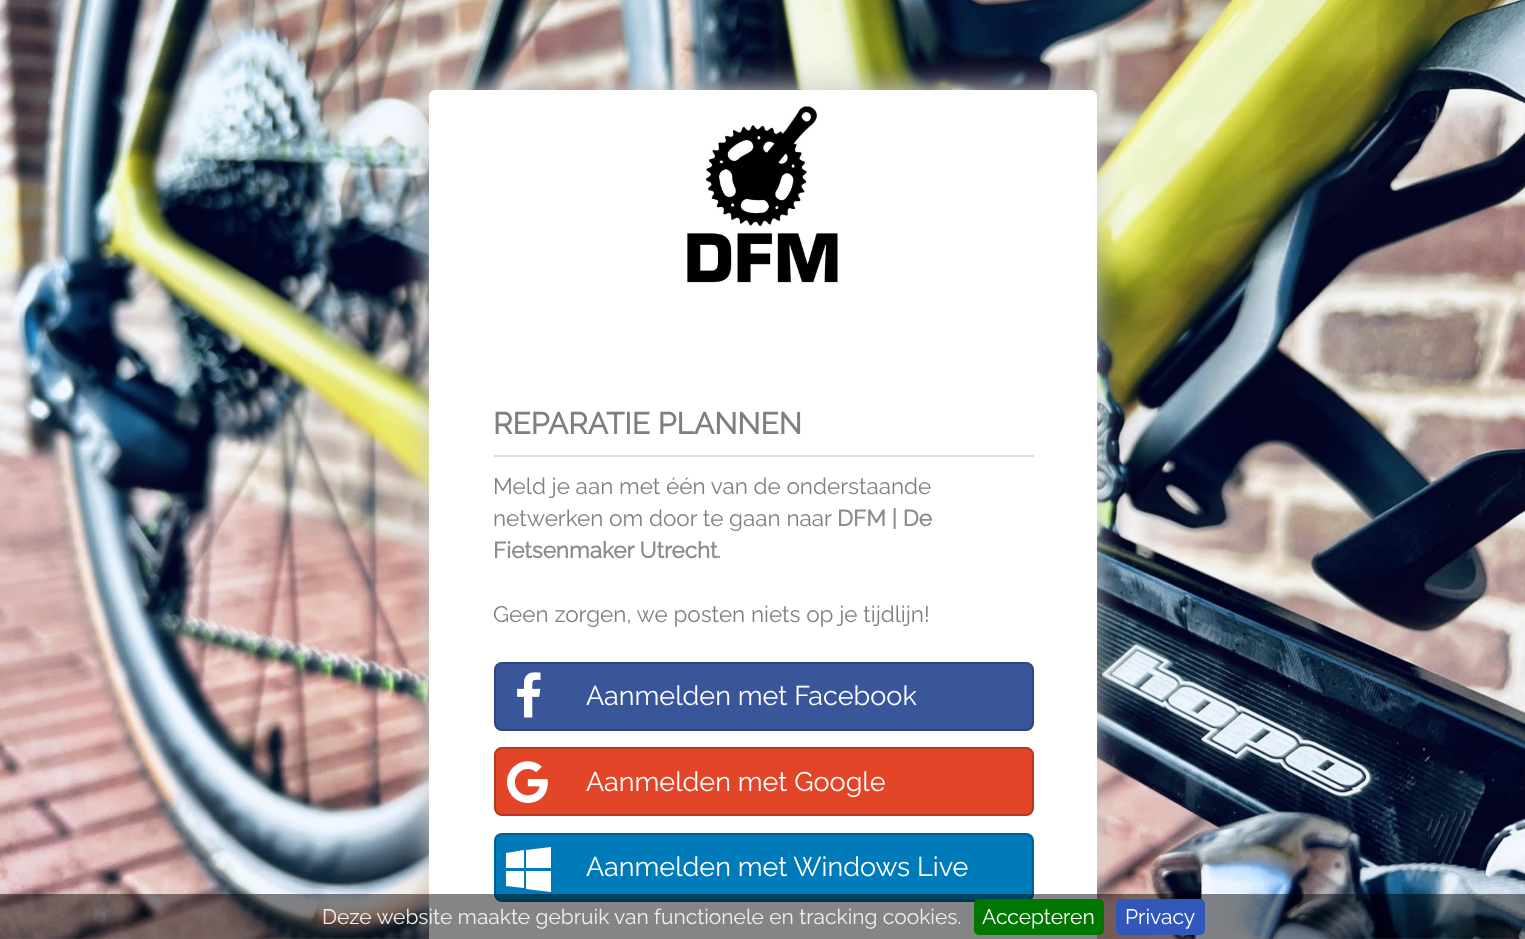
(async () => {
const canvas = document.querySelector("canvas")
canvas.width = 1525
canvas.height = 939
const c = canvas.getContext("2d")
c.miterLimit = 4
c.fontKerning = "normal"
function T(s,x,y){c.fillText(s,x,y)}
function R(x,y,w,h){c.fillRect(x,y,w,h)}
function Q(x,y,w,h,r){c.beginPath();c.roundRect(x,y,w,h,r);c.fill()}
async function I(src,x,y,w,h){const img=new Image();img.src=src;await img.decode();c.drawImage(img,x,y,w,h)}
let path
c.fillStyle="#fff"
R(0,0,1525,939)
await I("1.png",0,0,1525,939)
c.fillStyle="#ccc"
c.filter="blur(15px)"
c.beginPath()
c.roundRect(428,87,667,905,8)
c.fill()
c.filter="none"
c.fillStyle="#fff"
Q(429,90,668,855,6)
await I("2.png",686,106,153,178)
c.fillStyle="#dcdcdc"
R(494,455,540,2)
c.font="bold 30px Raleway"
c.fillStyle="#7f7f7f"
T("REPARATIE PLANNEN",493,434)
c.font="100 22.5px Raleway"
T("Meld je aan met één van de onderstaande",493,494)
T("netwerken om door te gaan naar",493,526)
c.font="bold 22.5px Raleway"
c.fillStyle="#8c8c8c"
T("DFM | De",837,526)
T("Fietsenmaker Utrecht",493,558)
c.font="100 22.5px Raleway"
c.fillStyle="#7f7f7f"
T(".",717,558)
T("Geen zorgen, we posten niets op je tijdlijn!",493,622)
c.fillStyle="#39569b"
Q(494,662,540,69,8)
c.beginPath()
c.roundRect(495,663,538,67,7)
c.strokeStyle="#00000033"
c.lineWidth=2
c.stroke()
await I("3.png",517,672,24,46)
c.font="100 27px Raleway"
c.fillStyle="#fff"
T("Aanmelden met Facebook",586,705)
c.fillStyle="#e34528"
Q(494,747,540,69,8)
c.beginPath()
c.roundRect(495,748,538,67,7)
c.stroke()
await I("4.png",507,761,41,42)
c.fillStyle="#fff"
T("Aanmelden met Google",586,791)
c.fillStyle="#007bb9"
Q(494,833,540,69,8)
c.beginPath()
c.roundRect(495,834,538,67,7)
c.stroke()
c.fillStyle="#fff"
path = new Path2D("M524 871v17l-18-2v-15zm0-21v18h-18v-15zm27 21v21l-25-3v-18zm0-24v21h-25v-18z")
c.fill(path)
T("Aanmelden met Windows Live",586,876)
c.fillStyle="#0000007a"
R(0,894,1525,45)
c.font="100 21px Raleway"
c.fillStyle="#eee"
T("Deze website maakte gebruik van functionele en tracking cookies.",322,924)
c.fillStyle="#070"
Q(974,899,130,36,5)
c.fillStyle="#fff"
T("Accepteren",982,924)
c.fillStyle="#3257bb"
Q(1116,899,89,36,5)
c.fillStyle="#fff"
T("Privacy",1125,924)
})()
